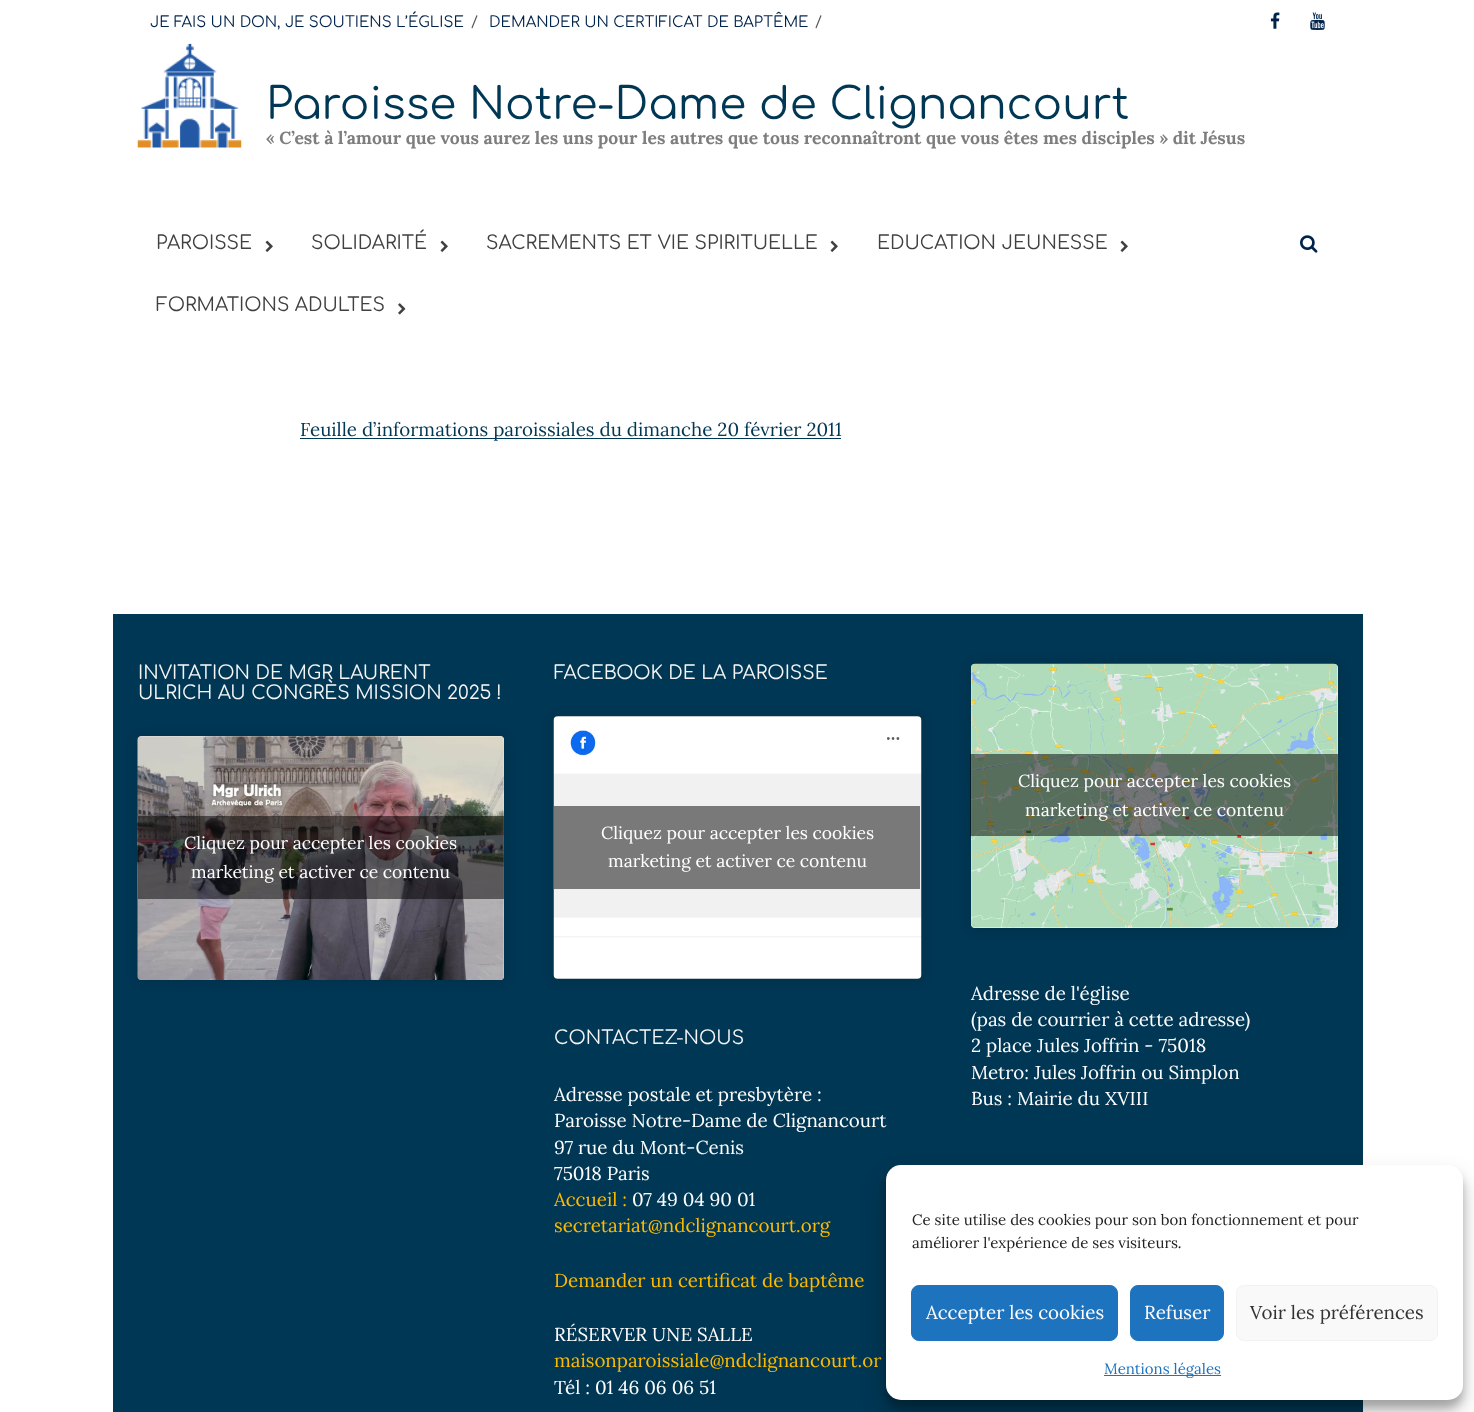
(async () => {
const canvas = document.querySelector("canvas")
canvas.width = 1474
canvas.height = 1412
const c = canvas.getContext("2d")
c.miterLimit = 4
c.fontKerning = "normal"
function T(s,x,y){c.fillText(s,x,y)}
function R(x,y,w,h){c.fillRect(x,y,w,h)}
function Q(x,y,w,h,r){c.beginPath();c.roundRect(x,y,w,h,r);c.fill()}
async function I(src,x,y,w,h){const img=new Image();img.src=src;await img.decode();c.drawImage(img,x,y,w,h)}
c.fillStyle="#fff"
R(0,0,1474,1412)
c.font="15px Comfortaa"
c.fillStyle="#00234c"
T("JE FAIS UN DON, JE SOUTIENS L’ÉGLISE",150,27)
c.fillStyle="#555"
T("/",471,27)
c.fillStyle="#00234c"
T("DEMANDER UN CERTIFICAT DE BAPTÊME",489,27)
c.fillStyle="#555"
T("/",815,27)
await I("1.png",1270,12,10,17)
await I("2.png",1310,12,15,18)
await I("3.png",137,43,105,105)
c.font="43.75px Comfortaa"
c.fillStyle="#003754"
T("Paroisse Notre-Dame de Clignancourt",266,119)
c.font="bold 17.5px Lora"
c.fillStyle="#7e7e7e"
T("« C’est à l’amour que vous aurez les uns pour les autres que tous reconnaîtront que vous êtes mes disciples » dit Jésus",266,144)
c.font="18.75px Comfortaa"
c.fillStyle="#404040"
T("PAROISSE",156,249)
await I("4.png",265,240,8,12)
T("SOLIDARITÉ",311,249)
await I("4.png",440,240,8,12)
T("SACREMENTS ET VIE SPIRITUELLE",486,249)
await I("4.png",830,240,8,12)
T("EDUCATION JEUNESSE",877,249)
await I("4.png",1120,240,8,12)
T("FORMATIONS ADULTES",156,311)
await I("5.png",398,303,8,12)
await I("6.png",1300,235,18,18)
c.fillStyle="#003754"
R(300,438,541,1)
c.font="18.75px Lora"
T("Feuille d’informations paroissiales du dimanche 20 février 2011",300,436)
R(113,614,1250,798)
c.font="18.75px Comfortaa"
c.fillStyle="#f5f5f5"
T("INVITATION DE MGR LAURENT",138,679)
T("ULRICH AU CONGRÈS MISSION 2025 !",138,699)
c.fillStyle="#00000026"
c.filter="blur(6px)"
c.beginPath()
c.roundRect(138,738,366,243,4)
c.fill()
c.filter="none"
c.fillStyle="#00000080"
c.filter="blur(0.5px)"
c.beginPath()
c.roundRect(138,736,366,244,4)
c.fill()
c.filter="none"
c.fillStyle="#fff"
Q(138,736,366,244,4)
await I("7.png",137,736,367,244)
c.fillStyle="#00000080"
R(138,816,366,83)
c.font="17.5px Lora"
c.fillStyle="#fff"
T("Cliquez pour accepter les cookies",184,849)
T("marketing et activer ce contenu",191,878)
c.font="18.75px Comfortaa"
c.fillStyle="#f5f5f5"
T("FACEBOOK DE LA PAROISSE",554,679)
c.fillStyle="#00000026"
c.filter="blur(6px)"
c.beginPath()
c.roundRect(554,718,367,262,4)
c.fill()
c.filter="none"
c.fillStyle="#00000080"
c.filter="blur(0.5px)"
c.beginPath()
c.roundRect(554,716,367,263,4)
c.fill()
c.filter="none"
await I("8.png",553,716,369,263)
c.fillStyle="#797979"
R(554,806,366,83)
c.font="17.5px Lora"
c.fillStyle="#fff"
T("Cliquez pour accepter les cookies",601,839)
T("marketing et activer ce contenu",608,867)
c.font="18.75px Comfortaa"
c.fillStyle="#f5f5f5"
T("CONTACTEZ-NOUS",554,1044)
c.font="18.75px Lora"
c.fillStyle="#fff"
T("Adresse postale et presbytère :",554,1101)
T("Paroisse Notre-Dame de Clignancourt",554,1127)
T("97 rue du Mont-Cenis",554,1154)
T("75018 Paris",554,1180)
c.fillStyle="#ffba00"
T("Accueil :",554,1206)
c.fillStyle="#fff"
T("07 49 04 90 01",632,1206)
c.fillStyle="#ffba00"
T("secretariat@ndclignancourt.org",554,1232)
T("Demander un certificat de baptême",554,1287)
c.fillStyle="#fff"
T("RÉSERVER UNE SALLE",554,1341)
c.fillStyle="#ffba00"
T("maisonparoissiale@ndclignancourt.or",554,1367)
c.fillStyle="#fff"
T("Tél : 01 46 06 06 51",554,1394)
c.fillStyle="#00000026"
c.filter="blur(6px)"
c.beginPath()
c.roundRect(971,665,367,264,4)
c.fill()
c.filter="none"
c.fillStyle="#00000080"
c.filter="blur(0.5px)"
c.beginPath()
c.roundRect(971,664,367,264,4)
c.fill()
c.filter="none"
c.fillStyle="#fff"
Q(971,664,367,264,4)
await I("9.png",971,663,367,265)
c.fillStyle="#00000080"
R(970,754,368,82)
c.font="17.5px Lora"
c.fillStyle="#fff"
T("Cliquez pour accepter les cookies",1018,787)
T("marketing et activer ce contenu",1025,816)
c.font="18.75px Lora"
T("Adresse de l'église",971,1000)
T("(pas de courrier à cette adresse)",971,1026)
T("2 place Jules Joffrin - 75018",971,1052)
T("Metro: Jules Joffrin ou Simplon",971,1079)
T("Bus : Mairie du XVIII",971,1105)
c.fillStyle="#0000003b"
c.filter="blur(4px)"
c.beginPath()
c.roundRect(886,1173,577,235,15)
c.fill()
c.filter="none"
c.fillStyle="#00000030"
c.filter="blur(12.5px)"
c.beginPath()
c.roundRect(886,1178,577,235,15)
c.fill()
c.filter="none"
c.fillStyle="#fff"
Q(886,1165,577,235,15)
c.font="15px Lora"
c.fillStyle="#222"
T("Ce site utilise des cookies pour son bon fonctionnement et pour",912,1225)
T("améliorer l'expérience de ses visiteurs.",912,1248)
c.fillStyle="#1e73be"
c.beginPath()
c.roundRect(911.5,1285.5,206,55,7.5)
c.fill()
c.strokeStyle="#1e73be"
c.stroke()
c.font="18.75px Lora"
c.fillStyle="#fff"
T("Accepter les cookies",926,1319)
c.fillStyle="#1e73be"
c.beginPath()
c.roundRect(1130.5,1285.5,93,55,7.5)
c.fill()
c.stroke()
c.fillStyle="#fff"
T("Refuser",1144,1319)
c.fillStyle="#f9f9f9"
c.beginPath()
c.roundRect(1236.5,1285.5,201,55,7.5)
c.fill()
c.strokeStyle="#f2f2f2"
c.stroke()
c.fillStyle="#333"
T("Voir les préférences",1250,1319)
c.fillStyle="#1e73be"
R(1104,1375,117,1)
c.font="15px Lora"
T("Mentions légales",1104,1374)
})()
